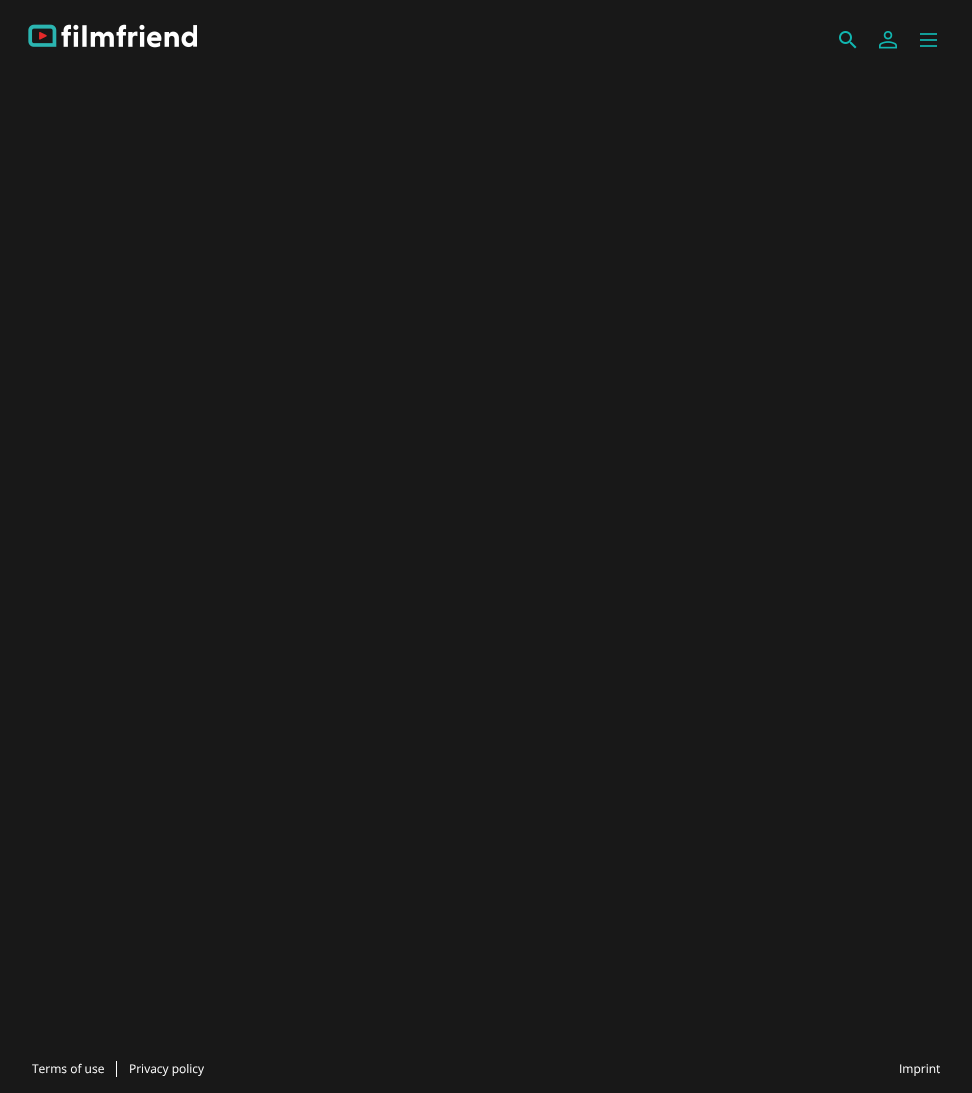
(async () => {
const canvas = document.querySelector("canvas")
canvas.width = 972
canvas.height = 1093
const c = canvas.getContext("2d")
c.miterLimit = 4
c.fontKerning = "normal"
function T(s,x,y){c.fillText(s,x,y)}
function R(x,y,w,h){c.fillRect(x,y,w,h)}
async function I(src,x,y,w,h){const img=new Image();img.src=src;await img.decode();c.drawImage(img,x,y,w,h)}
c.fillStyle="#181818"
R(0,0,972,1093)
await I("1.png",28,24,169,24)
await I("2.png",839,31,18,18)
await I("3.png",879,31,18,18)
c.fillStyle="#129e99"
R(920,33,17,2)
R(920,39,17,2)
R(920,45,17,2)
c.font="12px Open Sans"
c.fillStyle="#fff"
T("Terms of use",32,1073)
R(116,1061,1,16)
T("Privacy policy",129,1073)
T("Imprint",899,1073)
})()
